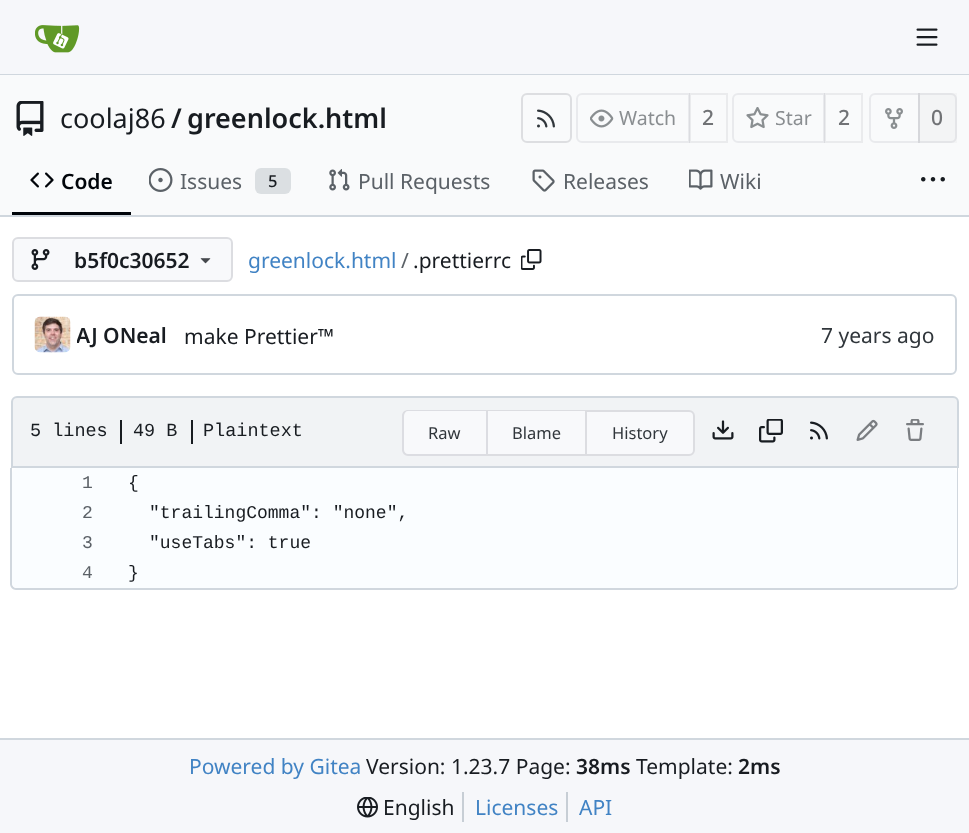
(async () => {
const canvas = document.querySelector("canvas")
canvas.width = 969
canvas.height = 833
const c = canvas.getContext("2d")
c.miterLimit = 4
c.fontKerning = "normal"
function T(s,x,y){c.fillText(s,x,y)}
function R(x,y,w,h){c.fillRect(x,y,w,h)}
function Q(x,y,w,h,r){c.beginPath();c.roundRect(x,y,w,h,r);c.fill()}
async function I(src,x,y,w,h){const img=new Image();img.src=src;await img.decode();c.drawImage(img,x,y,w,h)}
let path
c.fillStyle="#fff"
R(0,0,969,833)
c.fillStyle="#f6f7fa"
R(0,0,969,74)
c.fillStyle="#d0d7de"
R(0,74,969,1)
await I("1.png",35,25,45,28)
await I("2.png",916,28,22,18)
c.fillStyle="#f9fafb"
R(0,75,969,140)
await I("3.png",16,101,28,35)
c.font="27px Noto Sans"
c.fillStyle="#181c21"
T("coolaj86",60,128)
c.font="600 27px Noto Sans"
T("/",171,128)
T("greenlock.html",187,128)
c.beginPath()
c.roundRect(522,94,49,48,5)
c.strokeStyle="#dddee1"
c.lineWidth=2
c.stroke()
await I("4.png",537,109,18,19)
c.beginPath()
c.roundRect(577,94,112,48,[5,0,0,5])
c.strokeStyle="#e9eaed"
c.stroke()
await I("5.png",590,109,24,19)
c.font="19.5px Noto Sans"
c.fillStyle="#8a8e91"
T("Watch",619,125)
c.strokeStyle="#0000170f"
c.strokeRect(690,94,37,48)
c.font="500 21px Noto Sans"
c.fillStyle="#717376"
T("2",702,125)
c.beginPath()
c.roundRect(733,94,91,48,[5,0,0,5])
c.strokeStyle="#e9eaed"
c.stroke()
await I("6.png",746,107,23,22)
c.font="19.5px Noto Sans"
c.fillStyle="#8a8e91"
T("Star",775,125)
c.strokeStyle="#0000170f"
c.strokeRect(825,94,37,48)
c.font="500 21px Noto Sans"
c.fillStyle="#717376"
T("2",838,125)
c.beginPath()
c.roundRect(870,94,49,48,[5,0,0,5])
c.strokeStyle="#e9eaed"
c.stroke()
await I("7.png",885,108,18,21)
c.fillStyle="#7071710a"
R(918,93,39,50)
c.beginPath()
c.roundRect(919,94,37,48,[0,5,5,0])
c.strokeStyle="#70717e1c"
c.stroke()
c.fillStyle="#717376"
T("0",931,125)
c.fillStyle="#01050a"
R(12,212,119,3)
await I("8.png",30,172,24,16)
c.font="600 21px Noto Sans"
T("Code",61,189)
await I("9.png",149,168,24,24)
c.font="21px Noto Sans"
c.fillStyle="#5b6167"
T("Issues",180,189)
c.fillStyle="#dbdfe2"
Q(255,168,36,26,6)
c.font="500 16.5px Noto Sans"
c.fillStyle="#181c21"
T("5",268,187)
await I("10.png",329,169,21,22)
c.font="21px Noto Sans"
c.fillStyle="#5b6167"
T("Pull Requests",358,189)
await I("11.png",532,169,23,23)
T("Releases",563,189)
await I("12.png",689,169,24,21)
T("Wiki",720,189)
await I("13.png",921,177,24,5)
c.fillStyle="#d0d7de"
R(0,215,969,2)
c.fillStyle="#f8f9fb"
c.beginPath()
c.roundRect(13,238,219,43,5)
c.fill()
c.strokeStyle="#dcdde1"
c.stroke()
await I("14.png",31,249,19,21)
c.font="600 21px Noto Sans"
c.fillStyle="#181c21"
T("b5f0c30652",74,268)
await I("15.png",200,258,11,6)
c.font="21px Noto Sans"
c.fillStyle="#4183c4"
T("greenlock.html",248,268)
c.fillStyle="#5b6167"
T("/",401,268)
c.fillStyle="#181c21"
T(".prettierrc",413,268)
await I("16.png",521,249,21,21)
c.beginPath()
c.roundRect(13,295,943,79,5)
c.strokeStyle="#d0d7de"
c.stroke()
await I("17.png",34,316,37,37)
c.save()
c.beginPath()
c.rect(77,320,90,30)
c.clip()
c.font="600 21px Noto Sans"
T("AJ ONeal",76,343)
c.restore()
T("make Prettier™",184,344)
c.fillStyle="#30363b"
T("7 years ago",821,343)
c.fillStyle="#f1f3f5"
c.beginPath()
c.roundRect(12,397,946,70,[5,5,0,0])
c.fill()
c.stroke()
c.font="18.5px Liberation Mono"
c.fillStyle="#181c21"
T("5 lines",30,436)
R(120,420,2,24)
T("49 B",133,436)
R(191,420,2,24)
T("Plaintext",203,436)
c.fillStyle="#f8f9fb"
c.beginPath()
c.roundRect(402,410,84,46,[6,0,0,6])
c.fill()
c.fillStyle="#0000171c"
path = new Path2D("M408 410h78v46h-78c-3 0-6-3-6-6v-34c0-4 3-6 6-6zm0 1h78v43h-78c-2 0-4-2-4-4v-34c0-3 2-5 4-5z")
c.fill(path,"evenodd")
c.font="16.5px Noto Sans"
c.fillStyle="#30363b"
T("Raw",428,439)
c.fillStyle="#f8f9fb"
R(486,410,99,46)
c.fillStyle="#dcdde1"
path = new Path2D("M486 410h99v1h-97z")
c.fill(path)
path = new Path2D("M585 456h-99l2-2h97z")
c.fill(path)
c.fillStyle="#0000171c"
path = new Path2D("M486 456v-46l2 1v43z")
c.fill(path)
c.fillStyle="#30363b"
T("Blame",512,439)
c.fillStyle="#f8f9fb"
c.beginPath()
c.roundRect(586,411,108,44,[0,5,5,0])
c.fill()
c.strokeStyle="#dcdde1"
c.stroke()
c.fillStyle="#30363b"
T("History",612,439)
await I("18.png",712,420,22,20)
await I("19.png",759,419,24,24)
await I("20.png",810,421,18,19)
await I("21.png",856,419,22,22)
await I("22.png",906,419,18,22)
c.fillStyle="#d0d7de"
path = new Path2D("M10 468h948v116c0 3-2 6-6 6h-936c-3 0-6-3-6-6zm2 0h945v116c0 2-2 4-5 4h-936c-2 0-4-2-4-4z")
c.fill(path,"evenodd")
c.fillStyle="#fafdff"
Q(12,468,945,120,6)
c.font="18px Liberation Mono"
c.fillStyle="#5b6167"
T("1",82,488)
c.fillStyle="#181c21"
T("{",128,488)
c.fillStyle="#5b6167"
T("2",82,518)
c.fillStyle="#181c21"
T("\"trailingComma\": \"none\",",149,518)
c.fillStyle="#5b6167"
T("3",82,548)
c.fillStyle="#181c21"
T("\"useTabs\": true",149,548)
c.fillStyle="#5b6167"
T("4",82,578)
c.fillStyle="#181c21"
T("}",128,578)
c.fillStyle="#f6f7fa"
R(0,740,969,93)
c.fillStyle="#d0d7de"
R(0,738,969,2)
c.font="21px Noto Sans"
c.fillStyle="#4183c4"
T("Powered by Gitea",189,774)
c.fillStyle="#181c21"
T("Version: 1.23.7 Page:",366,774)
c.font="600 21px Noto Sans"
T("38ms",576,774)
c.font="21px Noto Sans"
T("Template:",636,774)
c.font="600 21px Noto Sans"
T("2ms",738,774)
await I("23.png",357,797,21,21)
c.font="21px Noto Sans"
T("English",383,815)
c.fillStyle="#c7ced5"
R(462,792,2,30)
c.fillStyle="#4183c4"
T("Licenses",475,815)
c.fillStyle="#c7ced5"
R(566,792,2,30)
c.fillStyle="#4183c4"
T("API",579,815)
})()
